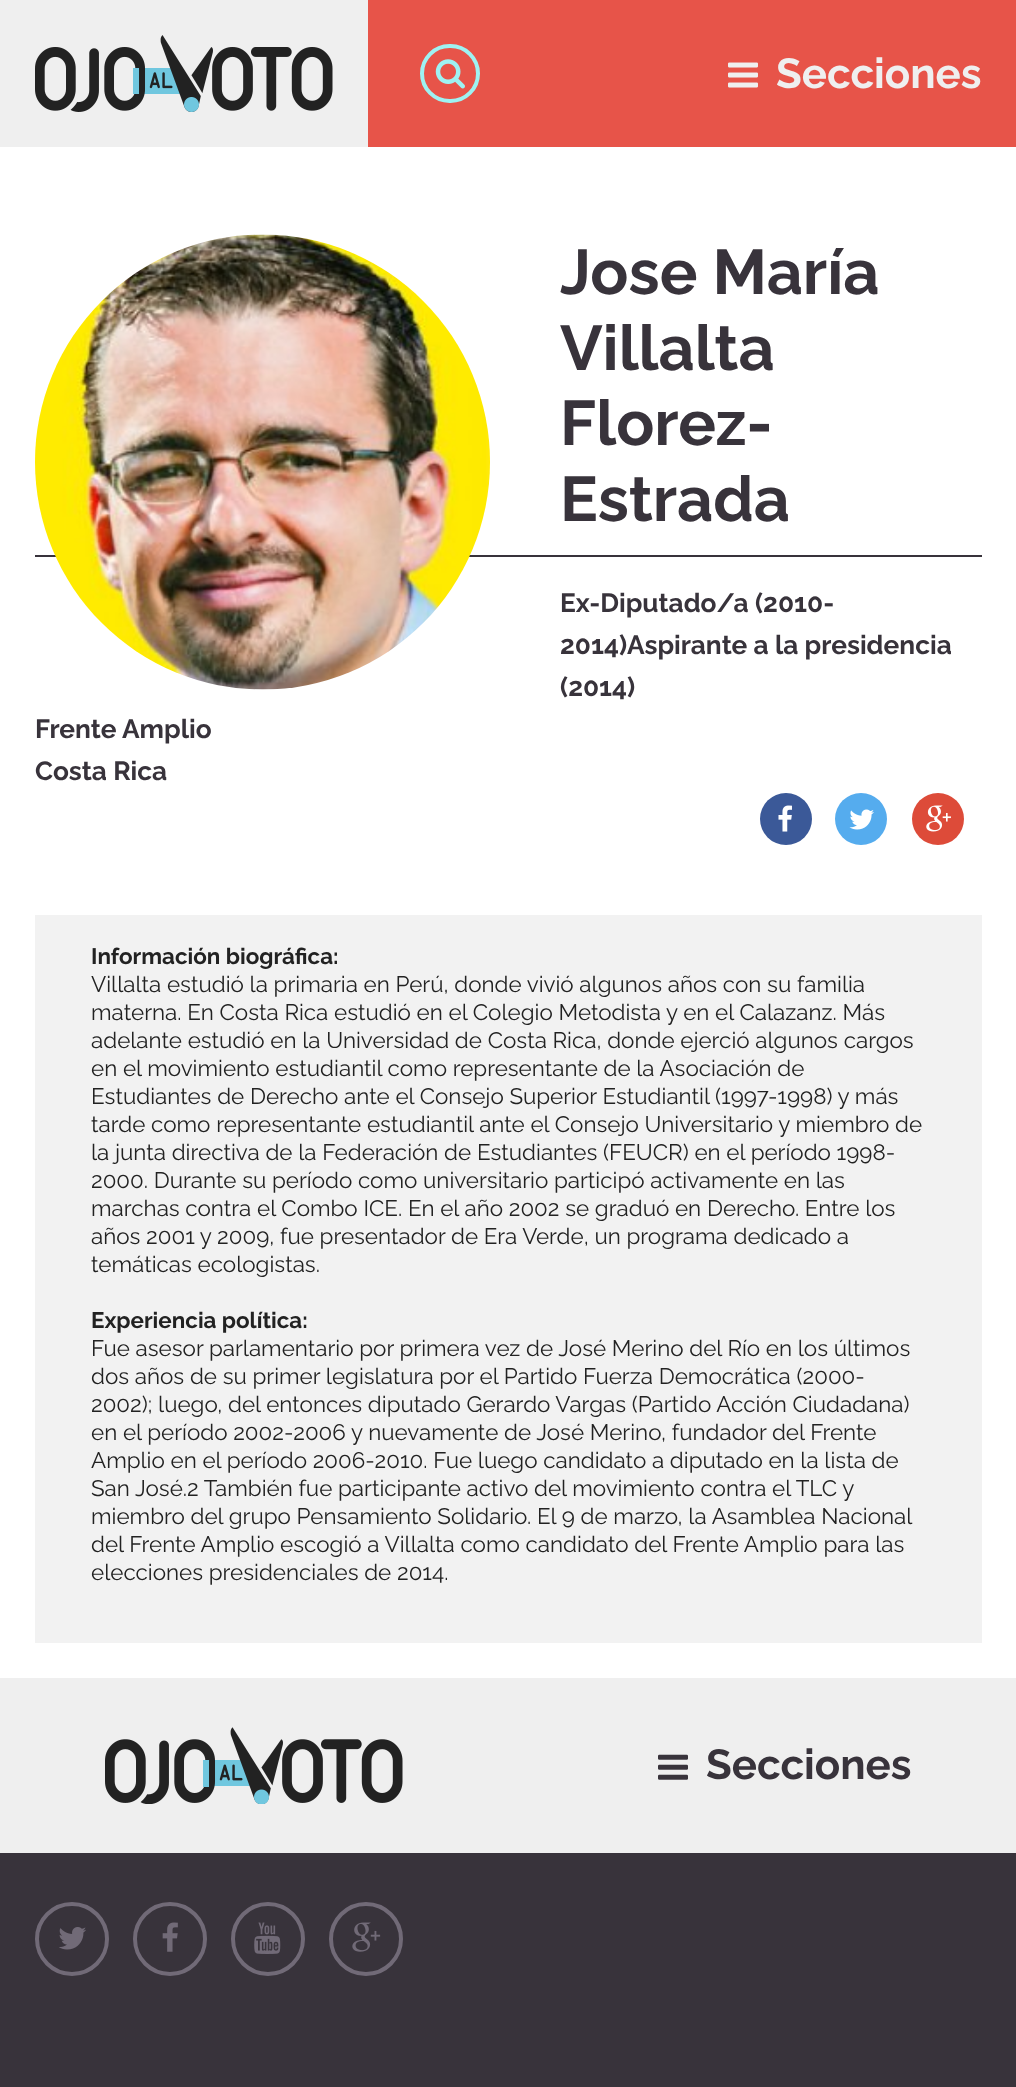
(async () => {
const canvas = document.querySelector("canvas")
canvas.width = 1016
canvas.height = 2087
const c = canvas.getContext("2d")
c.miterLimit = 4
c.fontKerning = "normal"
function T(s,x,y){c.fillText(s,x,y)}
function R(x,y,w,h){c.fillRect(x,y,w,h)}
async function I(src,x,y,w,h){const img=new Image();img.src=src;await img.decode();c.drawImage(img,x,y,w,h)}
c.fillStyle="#fff"
R(0,0,1016,2087)
c.fillStyle="#e75449"
R(368,0,648,147)
c.fillStyle="#efefef"
R(0,0,368,147)
await I("1.png",35,35,298,77)
c.beginPath()
c.roundRect(422,46,56,55,27.5)
c.strokeStyle="#9ef2f2"
c.lineWidth=4
c.stroke()
await I("2.png",435,59,30,30)
await I("3.png",728,62,30,26)
c.font="bold 42px Raleway"
T("Secciones",776,88)
c.fillStyle="#38333b"
R(35,555,947,2)
await I("4.png",35,234,455,456)
c.font="bold 63px Raleway"
T("Jose María",560,294)
T("Villalta",560,370)
T("Florez-",560,445)
T("Estrada",560,521)
c.font="bold 26.25px Raleway"
T("Ex-Diputado/a (2010-",560,612)
T("2014)Aspirante a la presidencia",560,654)
T("(2014)",560,696)
T("Frente Amplio",35,738)
T("Costa Rica",35,780)
c.fillStyle="#3b5998"
c.beginPath()
c.arc(786,819,26,0,7)
c.fill()
await I("5.png",778,805,14,27)
c.fillStyle="#55acee"
c.beginPath()
c.arc(861,819,26,0,7)
c.fill()
await I("6.png",849,809,25,21)
c.fillStyle="#dd4b39"
c.beginPath()
c.arc(938,819,26,0,7)
c.fill()
await I("7.png",926,805,25,27)
c.fillStyle="#f2f2f2"
R(35,915,947,728)
c.font="bold 22.4px Raleway"
c.fillStyle="#222"
T("Información biográfica:",91,964)
c.font="22.4px Raleway"
T("Villalta estudió la primaria en Perú, donde vivió algunos años con su familia",91,992)
T("materna. En Costa Rica estudió en el Colegio Metodista y en el Calazanz. Más",91,1020)
T("adelante estudió en la Universidad de Costa Rica, donde ejerció algunos cargos",91,1048)
T("en el movimiento estudiantil como representante de la Asociación de",91,1076)
T("Estudiantes de Derecho ante el Consejo Superior Estudiantil (1997-1998) y más",91,1104)
T("tarde como representante estudiantil ante el Consejo Universitario y miembro de",91,1132)
T("la junta directiva de la Federación de Estudiantes (FEUCR) en el período 1998-",91,1160)
T("2000. Durante su período como universitario participó activamente en las",91,1188)
T("marchas contra el Combo ICE. En el año 2002 se graduó en Derecho. Entre los",91,1216)
T("años 2001 y 2009, fue presentador de Era Verde, un programa dedicado a",91,1244)
T("temáticas ecologistas.",91,1272)
c.font="bold 22.4px Raleway"
T("Experiencia política:",91,1328)
c.font="22.4px Raleway"
T("Fue asesor parlamentario por primera vez de José Merino del Río en los últimos",91,1356)
T("dos años de su primer legislatura por el Partido Fuerza Democrática (2000-",91,1384)
T("2002); luego, del entonces diputado Gerardo Vargas (Partido Acción Ciudadana)",91,1412)
T("en el período 2002-2006 y nuevamente de José Merino, fundador del Frente",91,1440)
T("Amplio en el período 2006-2010. Fue luego candidato a diputado en la lista de",91,1468)
T("San José.2 También fue participante activo del movimiento contra el TLC y",91,1496)
T("miembro del grupo Pensamiento Solidario. El 9 de marzo, la Asamblea Nacional",91,1524)
T("del Frente Amplio escogió a Villalta como candidato del Frente Amplio para las",91,1552)
T("elecciones presidenciales de 2014.",91,1580)
c.fillStyle="#efefef"
R(0,1678,1016,175)
await I("8.png",105,1727,298,77)
await I("9.png",658,1754,30,26)
c.font="bold 42px Raleway"
c.fillStyle="#38333b"
T("Secciones",706,1779)
R(0,1853,1016,234)
c.beginPath()
c.arc(72,1939,35,0,7)
c.strokeStyle="#716a77"
c.stroke()
await I("10.png",59,1927,27,23)
c.beginPath()
c.arc(170,1939,35,0,7)
c.stroke()
await I("11.png",162,1922,16,30)
c.beginPath()
c.arc(268,1939,35,0,7)
c.stroke()
await I("12.png",254,1922,27,32)
c.beginPath()
c.arc(366,1939,35,0,7)
c.stroke()
await I("13.png",352,1922,29,30)
})()
